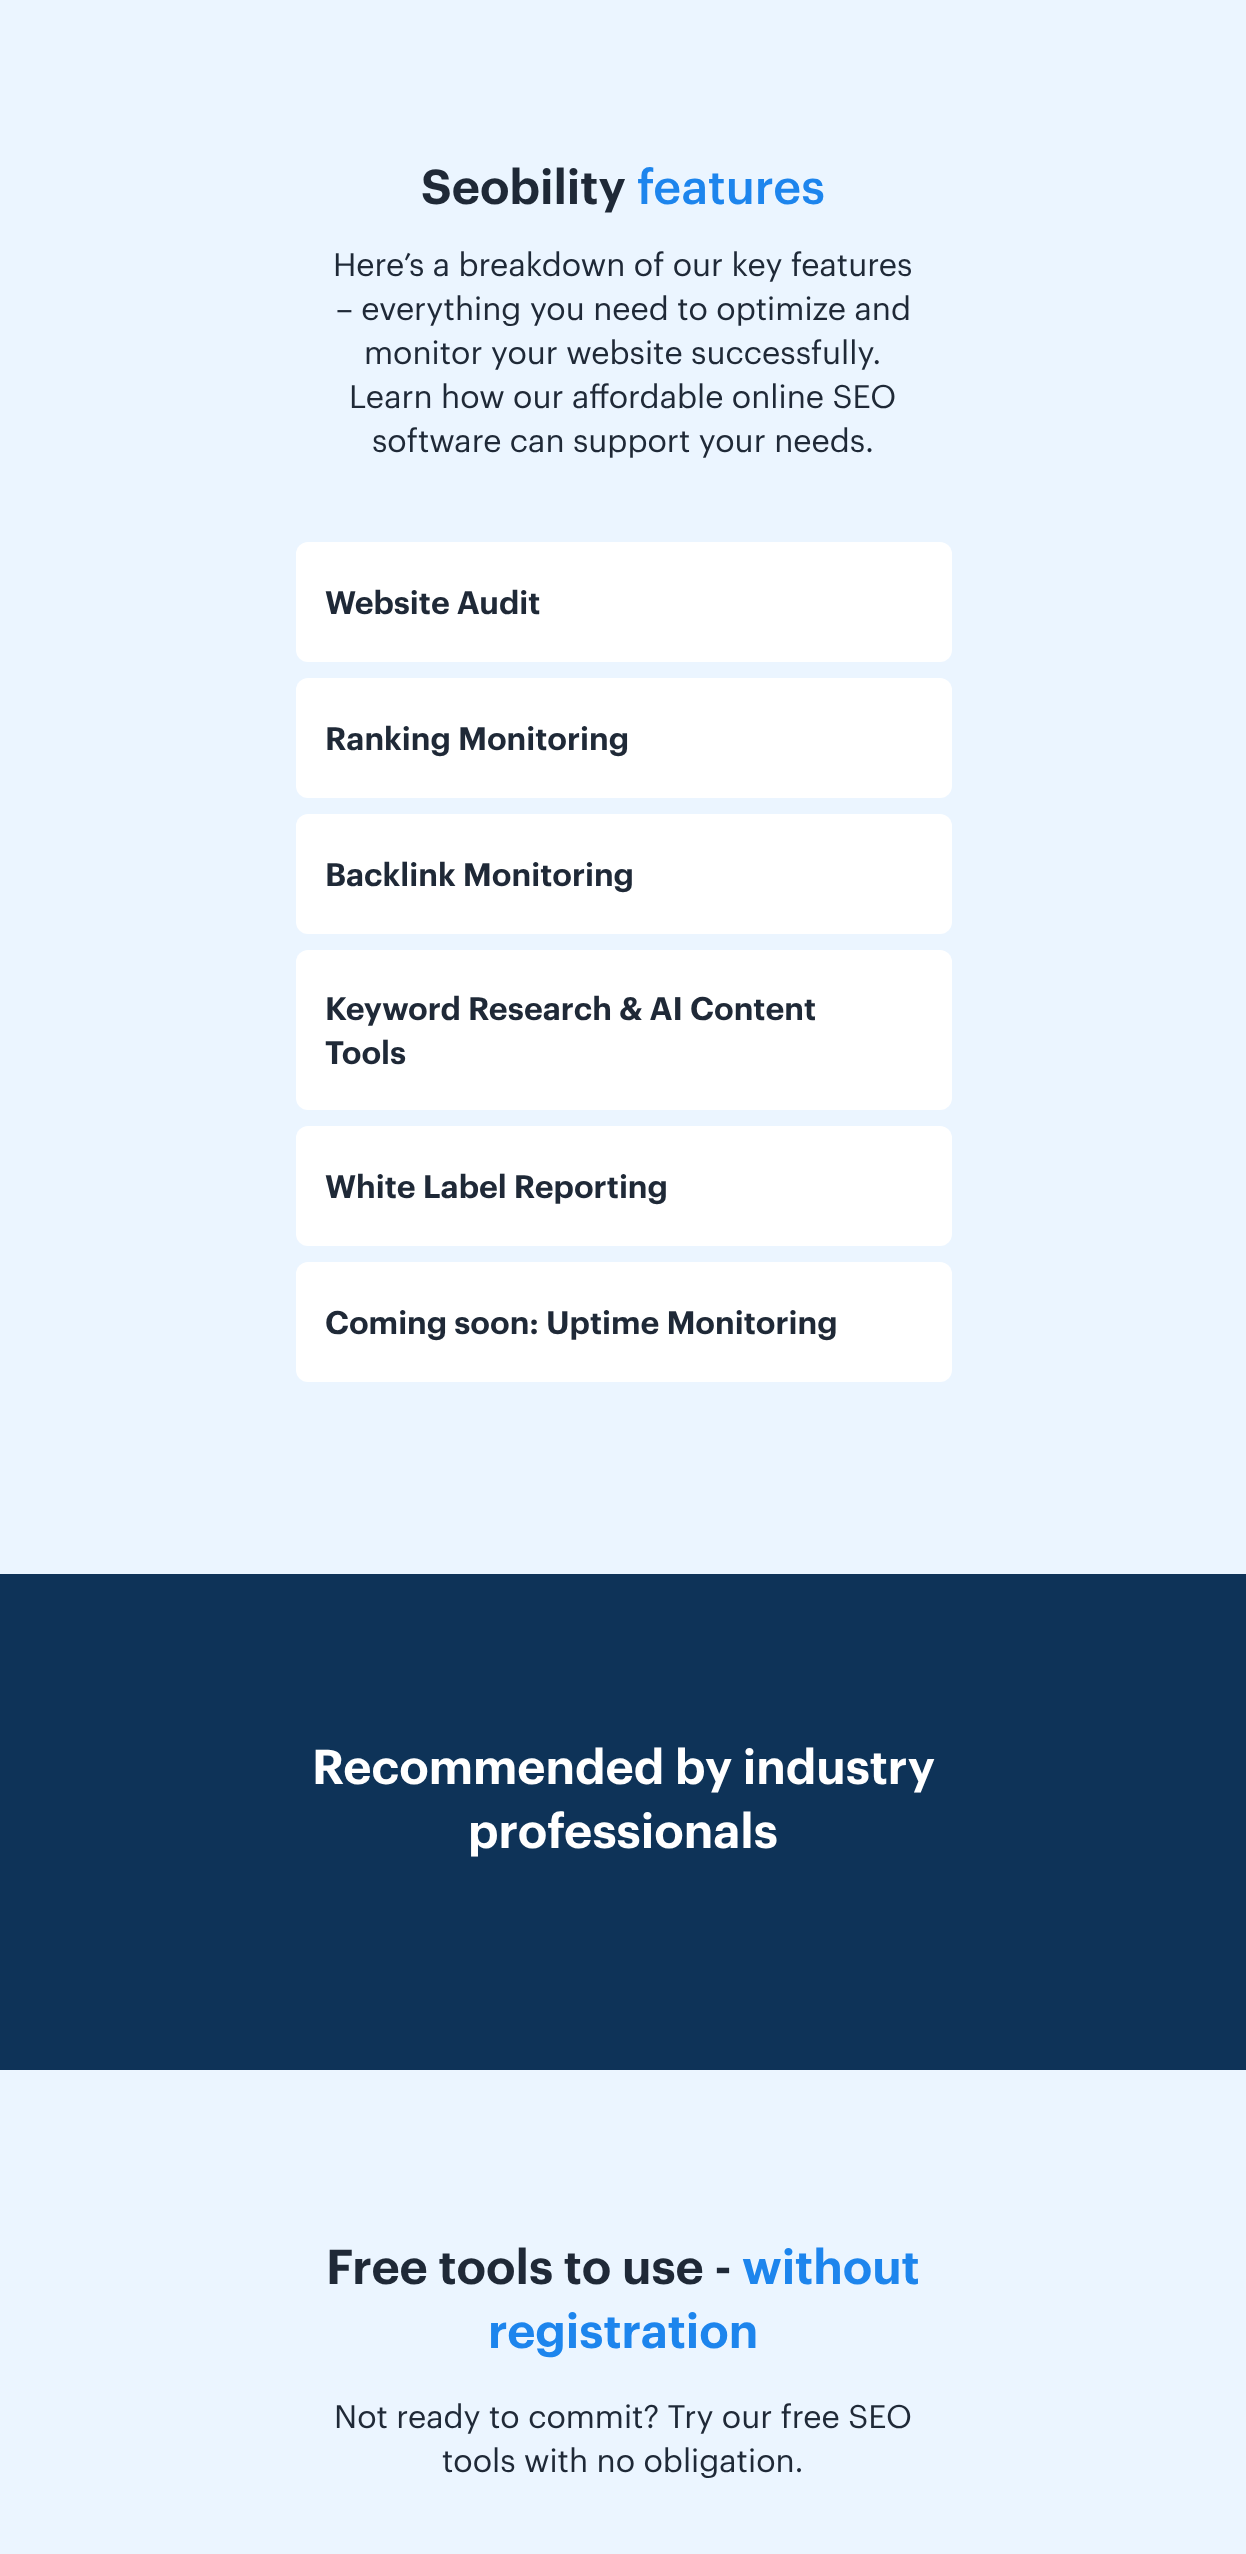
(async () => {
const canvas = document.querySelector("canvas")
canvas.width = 1246
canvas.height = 2554
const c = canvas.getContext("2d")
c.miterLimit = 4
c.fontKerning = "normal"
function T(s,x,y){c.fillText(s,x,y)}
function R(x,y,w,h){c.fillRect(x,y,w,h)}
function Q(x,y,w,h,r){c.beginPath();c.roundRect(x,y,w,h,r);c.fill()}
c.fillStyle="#ebf5ff"
R(0,0,1246,2554)
c.font="600 48px Graphik"
c.fillStyle="#1f2937"
T("Seobility",421,204)
c.font="500 48px Graphik"
c.fillStyle="#1d85ed"
T("features",637,204)
c.font="32px Graphik"
c.fillStyle="#1f2937"
T("Here’s a breakdown of our key features",333,276)
T("– everything you need to optimize and",336,320)
T("monitor your website successfully.",364,364)
T("Learn how our affordable online SEO",349,408)
T("software can support your needs.",372,452)
c.fillStyle="#fff"
Q(296,542,656,120,12)
c.font="600 32px Graphik"
c.fillStyle="#1f2937"
T("Website Audit",325,614)
c.fillStyle="#fff"
Q(296,678,656,120,12)
c.fillStyle="#1f2937"
T("Ranking Monitoring",325,750)
c.fillStyle="#fff"
Q(296,814,656,120,12)
c.fillStyle="#1f2937"
T("Backlink Monitoring",325,886)
c.fillStyle="#fff"
Q(296,950,656,160,12)
c.fillStyle="#1f2937"
T("Keyword Research & AI Content",325,1020)
T("Tools",325,1064)
c.fillStyle="#fff"
Q(296,1126,656,120,12)
c.fillStyle="#1f2937"
T("White Label Reporting",325,1198)
c.fillStyle="#fff"
Q(296,1262,656,120,12)
c.fillStyle="#1f2937"
T("Coming soon: Uptime Monitoring",325,1334)
c.fillStyle="#0e3358"
R(0,1574,1246,496)
c.font="600 48px Graphik"
c.fillStyle="#fff"
T("Recommended by industry",312,1784)
T("professionals",468,1848)
c.fillStyle="#1f2937"
T("Free tools to use -",326,2284)
c.fillStyle="#1d85ed"
T("without",742,2284)
T("registration",488,2348)
c.font="32px Graphik"
c.fillStyle="#1f2937"
T("Not ready to commit? Try our free SEO",334,2428)
T("tools with no obligation.",442,2472)
})()
